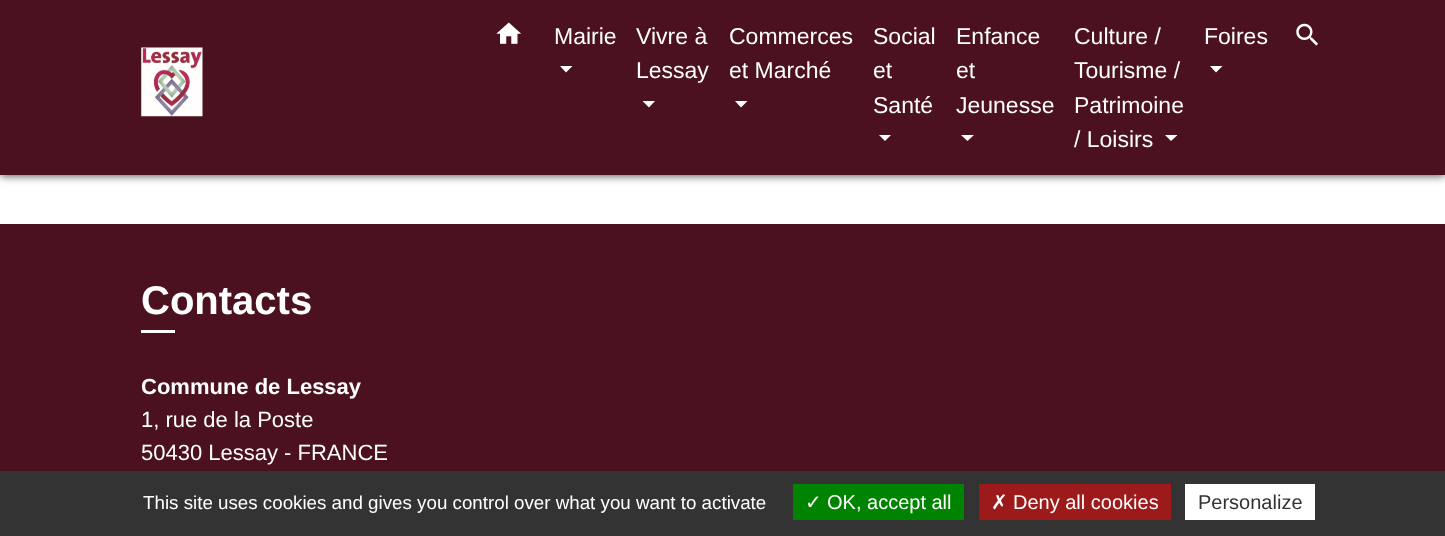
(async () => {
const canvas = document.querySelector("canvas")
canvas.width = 1445
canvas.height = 536
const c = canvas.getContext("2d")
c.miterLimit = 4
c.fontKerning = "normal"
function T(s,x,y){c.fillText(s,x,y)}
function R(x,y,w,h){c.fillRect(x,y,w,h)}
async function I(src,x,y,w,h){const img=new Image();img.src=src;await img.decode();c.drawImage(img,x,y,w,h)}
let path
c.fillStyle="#fff"
R(0,0,1445,536)
c.fillStyle="#535353"
c.filter="blur(4px)"
c.beginPath()
c.rect(0,1,1445,175)
c.fill()
c.filter="none"
c.fillStyle="#4b111f"
R(0,0,1445,175)
await I("1.png",141,47,62,70)
await I("2.png",496,22,25,22)
c.font="23px Liberation Sans"
c.fillStyle="#fff"
T("Mairie",554,44)
path = new Path2D("M560 66h12.5l-6.5 6.5z")
c.fill(path)
T("Vivre à",636,44)
T("Lessay",636,78)
path = new Path2D("M642.5 101h12.5l-6 6.5z")
c.fill(path)
T("Commerces",729,44)
T("et Marché",729,78)
path = new Path2D("M735 101h12.5l-6.5 6.5z")
c.fill(path)
T("Social",873,44)
T("et",873,78)
T("Santé",873,113)
path = new Path2D("M879 135h12l-6 6z")
c.fill(path)
T("Enfance",956,44)
T("et",956,78)
T("Jeunesse",956,113)
path = new Path2D("M961 135h13l-6.5 6z")
c.fill(path)
T("Culture /",1074,44)
T("Tourisme /",1074,78)
T("Patrimoine",1074,113)
T("/ Loisirs",1074,147)
path = new Path2D("M1165 135h12.5l-6.5 6z")
c.fill(path)
T("Foires",1204,44)
path = new Path2D("M1210 66h12.5l-6.5 6.5z")
c.fill(path)
await I("3.png",1296,23,22,23)
c.fillStyle="#4b111f"
R(0,224,1445,247)
c.font="bold 40px Liberation Sans"
c.fillStyle="#fff"
T("Contacts",141,314)
R(141,330,34,3)
c.font="bold 22px Liberation Sans"
T("Commune de Lessay",141,394)
c.font="22px Liberation Sans"
T("1, rue de la Poste",141,427)
T("50430 Lessay - FRANCE",141,460)
c.fillStyle="#333"
R(0,471,1445,65)
c.font="18.75px Liberation Sans"
c.fillStyle="#fff"
T("This site uses cookies and gives you control over what you want to activate",143,509)
c.fillStyle="#008300"
R(793,484,171,36)
c.font="20px DejaVu Sans"
c.fillStyle="#fff"
T("✓",805,509)
c.font="20px Liberation Sans"
T("OK, accept all",827,509)
c.fillStyle="#9c1a1a"
R(979,484,192,36)
c.font="20px DejaVu Sans"
c.fillStyle="#fff"
T("✗",991,509)
c.font="20px Liberation Sans"
T("Deny all cookies",1013,509)
R(1185,484,130,36)
c.fillStyle="#333"
T("Personalize",1198,509)
})()
